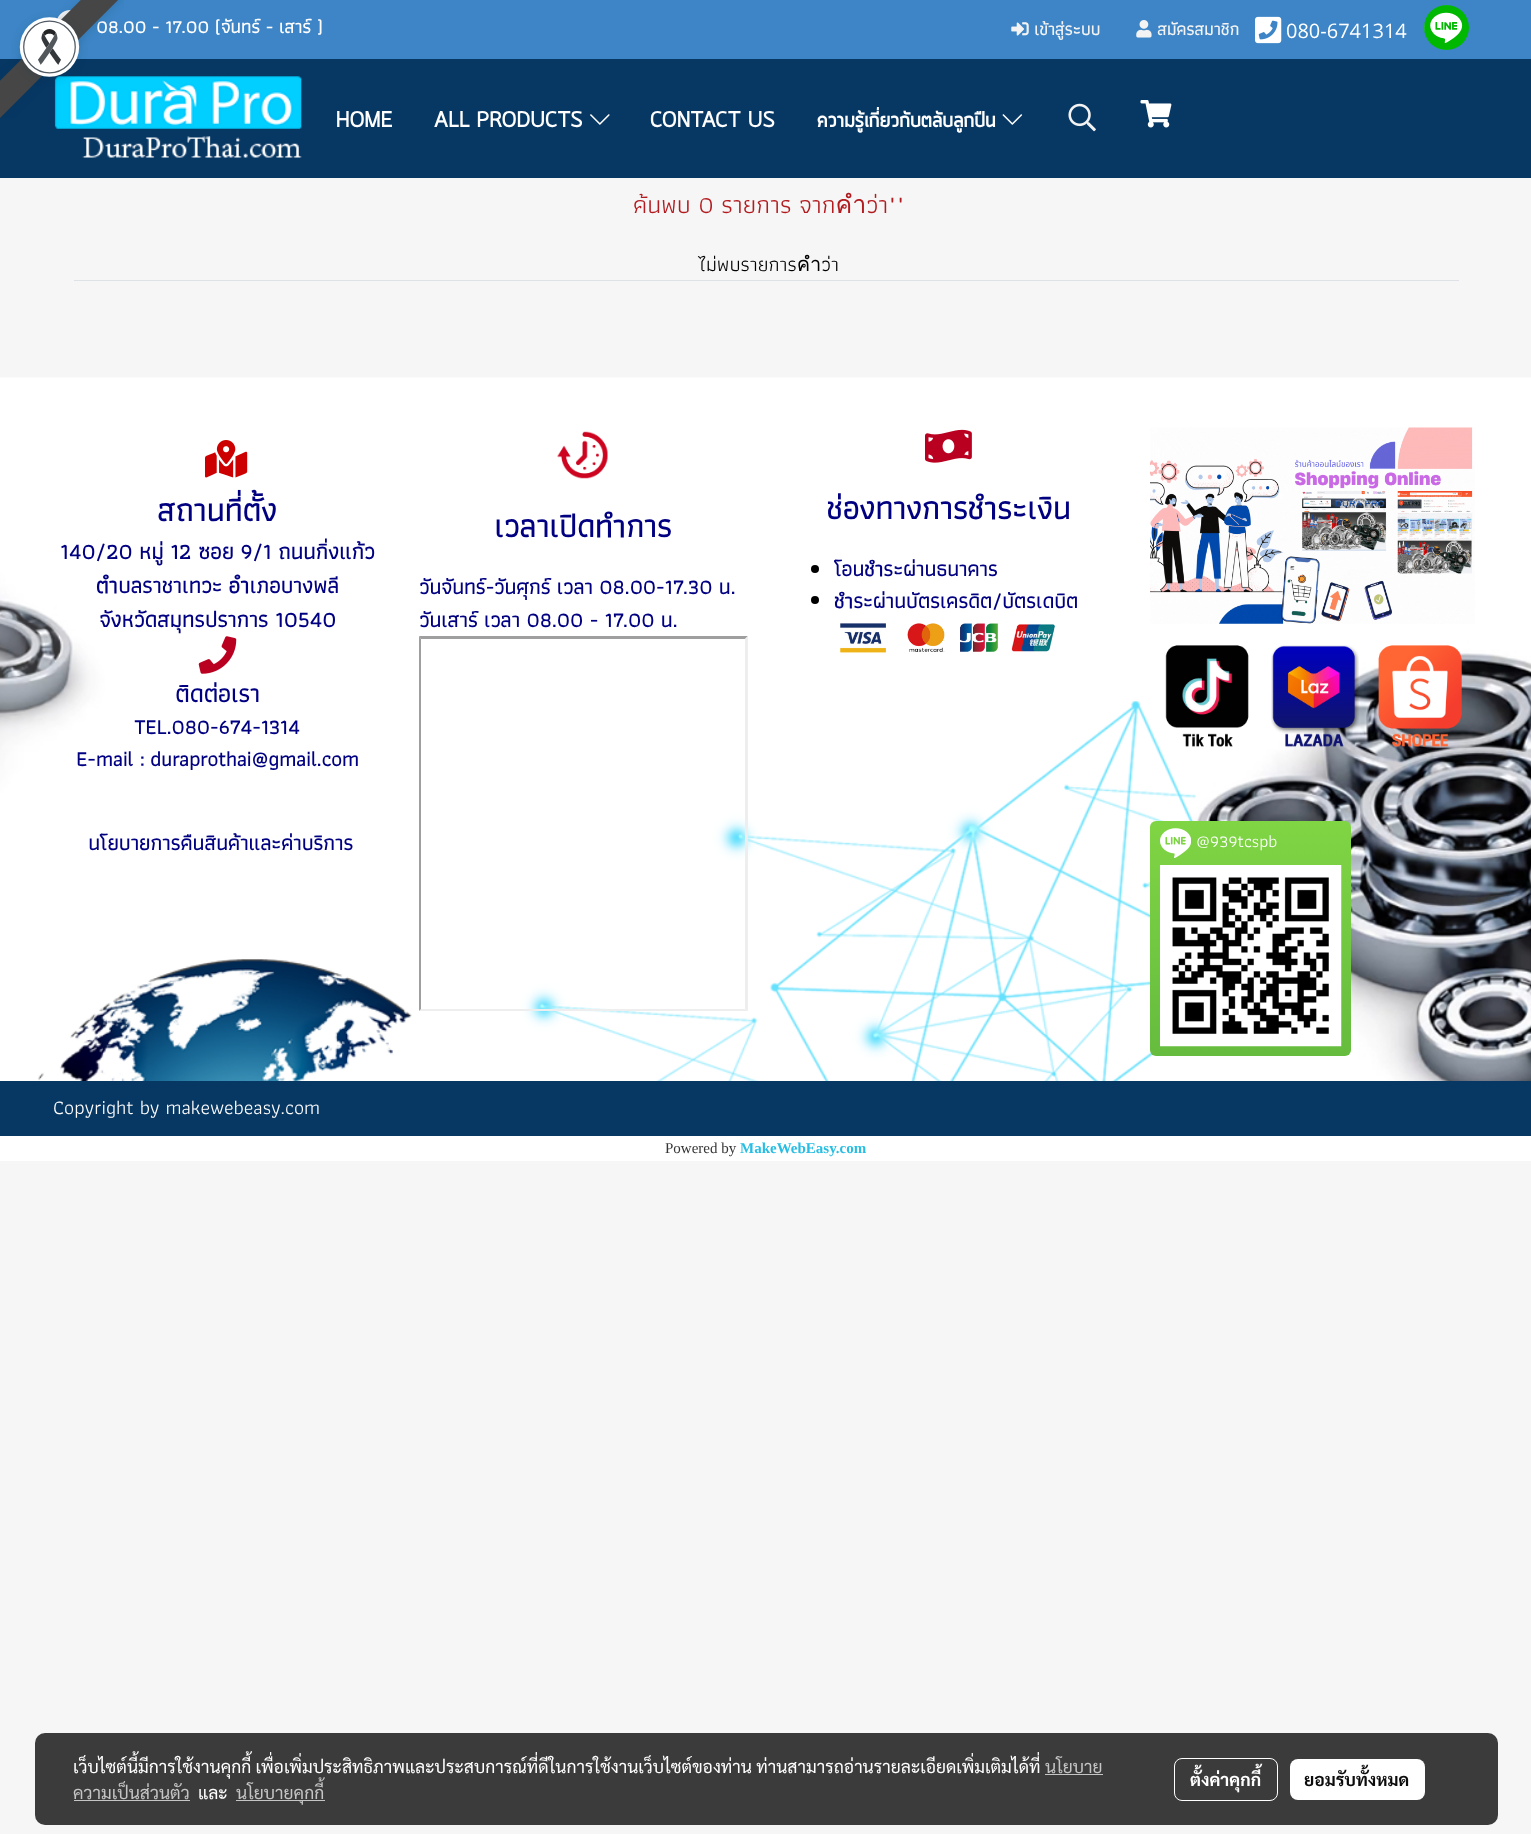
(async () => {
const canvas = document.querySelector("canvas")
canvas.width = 1531
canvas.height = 1834
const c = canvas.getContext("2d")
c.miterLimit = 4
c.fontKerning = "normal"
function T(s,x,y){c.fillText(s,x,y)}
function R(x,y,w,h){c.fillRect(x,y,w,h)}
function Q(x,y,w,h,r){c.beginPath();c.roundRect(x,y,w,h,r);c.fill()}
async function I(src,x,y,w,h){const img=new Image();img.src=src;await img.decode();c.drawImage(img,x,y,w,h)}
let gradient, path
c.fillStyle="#f6f6f6"
R(0,0,1531,1834)
c.fillStyle="#073763"
R(0,59,1531,119)
c.fillStyle="#3d85c6"
R(0,0,1531,59)
await I("2.png",57,10,14,10)
c.font="bold 18.75px Athiti"
c.fillStyle="#fff"
T("08.00 - 17.00 (จันทร์ - เสาร์ )",96,33)
await I("7.png",54,76,248,82)
await I("1.png",0,0,124,118)
await I("3.png",1011,22,18,14)
c.font="bold 17.5px Athiti"
c.fillStyle="#f3f3f3"
T("เข้าสู่ระบบ",1034,35)
await I("4.png",1136,20,16,18)
T("สมัครสมาชิก",1157,35)
await I("5.png",1255,16,27,28)
c.font="20px Open Sans"
c.fillStyle="#fff"
T("080-6741314",1286,38)
c.fillStyle="#00b800"
c.beginPath()
c.arc(1446.5,27.5,22.5,0,7)
c.fill()
await I("6.png",1424,5,39,45)
c.font="bold 22.5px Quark"
c.fillStyle="#fff"
T("HOME",336,127)
T("ALL PRODUCTS",434,127)
await I("8.png",590,114,20,11)
T("CONTACT US",650,127)
T("ความรู้เกี่ยวกับตลับลูกปืน",817,127)
await I("9.png",1002,114,21,11)
await I("10.png",1068,103,28,29)
await I("11.png",1140,100,32,28)
c.font="25px Athiti"
c.fillStyle="#b21b1f"
T("ค้นพบ 0 รายการ จากคำว่า\"\"",633,213)
c.fillStyle="#dee2e6"
R(74,280,1385,1)
c.font="20px Athiti"
c.fillStyle="#000"
T("ไม่พบรายการคำว่า",698,271)
await I("12.png",0,377,1531,704)
await I("13.png",205,440,43,38)
c.font="bold 32.5px Athiti"
c.fillStyle="#000080"
T("สถานที่ตั้ง",157,521)
c.font="bold 22.5px Athiti"
T("140/20 หมู่ 12 ซอย 9/1 ถนนกิ่งแก้ว",60,559)
T("ตำบลราชาเทวะ อำเภอบางพลี",96,593)
T("จังหวัดสมุทรปราการ 10540",99,627)
await I("14.png",198,636,39,38)
c.font="bold 25px Athiti"
T("ติดต่อเรา",175,702)
c.font="bold 21.25px Athiti"
T("TEL.080-674-1314",134,734)
T("E-mail :",76,766)
T("duraprothai@gmail.com",150,766)
T("นโยบายการคืนสินค้าและค่าบริการ",88,850)
await I("15.png",557,431,51,48)
c.font="bold 32.5px Athiti"
T("เวลาเปิดทำการ",494,537)
c.font="bold 21.25px Athiti"
T("วันจันทร์-วันศุกร์ เวลา 08.00-17.30 น.",419,594)
T("วันเสาร์ เวลา 08.00 - 17.00 น.",419,627)
c.fillStyle="#9f9f9f"
path = new Path2D("M419 636h329l-3 3h-324z")
c.fill(path)
c.fillStyle="#eee"
path = new Path2D("M748 636v375l-3-2v-370z")
c.fill(path)
path = new Path2D("M748 1011h-329l2-2h324z")
c.fill(path)
c.fillStyle="#9f9f9f"
path = new Path2D("M419 1011v-375l2 3v370z")
c.fill(path)
await I("16.png",925,429,47,34)
c.font="bold 32.5px Athiti"
c.fillStyle="#000080"
T("ช่องทางการชำระเงิน",826,519)
c.fillStyle="#000"
c.beginPath()
c.arc(815,569,4,0,7)
c.fill()
c.font="bold 21.25px Athiti"
c.fillStyle="#000080"
T("โอนชำระผ่านธนาคาร",834,576)
c.fillStyle="#000"
c.beginPath()
c.arc(815,600,4,0,7)
c.fill()
c.fillStyle="#000080"
T("ชำระผ่านบัตรเครดิต/บัตรเดบิต",834,608)
await I("17.png",840,623,215,30)
await I("18.png",1150,427,325,197)
await I("19.png",1165,645,84,102)
await I("20.png",1271,645,88,102)
await I("21.png",1378,645,84,102)
gradient = c.createLinearGradient(1251,821,1251,1056)
gradient.addColorStop(0,"#80d544")
gradient.addColorStop(1,"#65bc3e")
c.fillStyle = gradient
Q(1150,821,201,235,6)
await I("22.png",1160,828,31,30)
c.font="17.5px Athiti"
c.fillStyle="#fff"
T("@939tcspb",1196,847)
await I("23.png",1160,865,182,182)
c.fillStyle="#073763"
R(0,1081,1531,55)
c.font="20px Athiti"
c.fillStyle="#fff"
T("Copyright by makewebeasy.com",53,1114)
R(0,1136,1531,25)
c.font="15px Liberation Serif"
c.fillStyle="#353535"
T("Powered by",665,1153)
c.font="bold 15px Liberation Serif"
c.fillStyle="#28bee3"
T("MakeWebEasy.com",740,1153)
c.fillStyle="#3b3b3b"
Q(35,1733,1463,92,10)
c.font="17.5px Sarabun"
c.fillStyle="#fff"
T("เว็บไซต์นี้มีการใช้งานคุกกี้ เพื่อเพิ่มประสิทธิภาพและประสบการณ์ที่ดีในการใช้งานเว็บไซต์ของท่าน ท่านสามารถอ่านรายละเอียดเพิ่มเติมได้ที่",73,1773)
c.fillStyle="#c5c5c5"
T("นโยบาย",1045,1773)
R(1045,1774,58,1)
T("ความเป็นส่วนตัว",73,1799)
R(74,1800,116,1)
c.fillStyle="#fff"
T("และ",198,1799)
c.fillStyle="#c5c5c5"
R(236,1800,89,1)
T("นโยบายคุกกี้",236,1799)
c.beginPath()
c.roundRect(1174.5,1758.5,103,42,7.5)
c.strokeStyle="#fff"
c.stroke()
c.font="bold 17.5px Sarabun"
c.fillStyle="#fff"
T("ตั้งค่าคุกกี้",1190,1786)
Q(1290,1759,135,41,8)
c.fillStyle="#0c0c0c"
T("ยอมรับทั้งหมด",1304,1786)
})()
